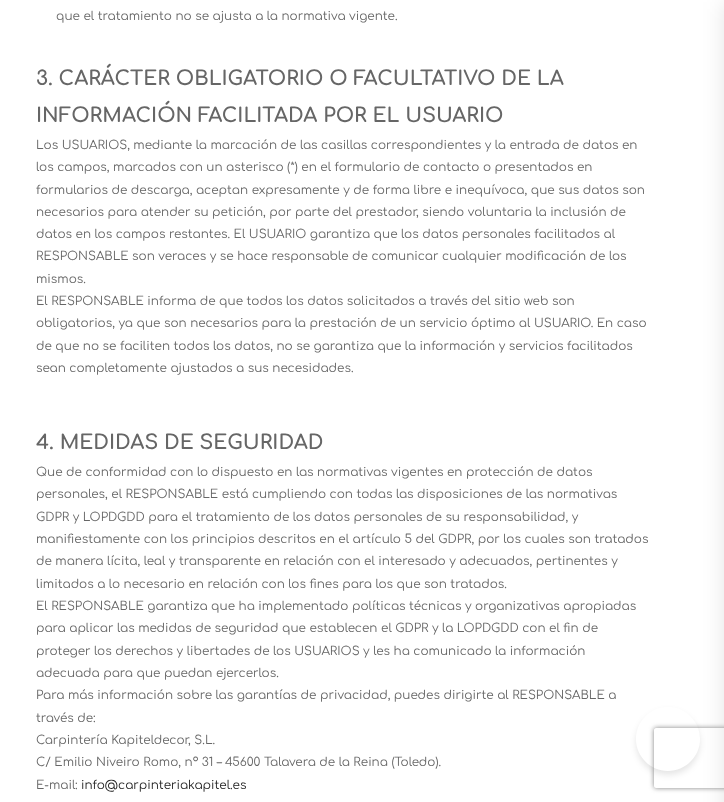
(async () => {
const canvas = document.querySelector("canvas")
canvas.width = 724
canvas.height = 802
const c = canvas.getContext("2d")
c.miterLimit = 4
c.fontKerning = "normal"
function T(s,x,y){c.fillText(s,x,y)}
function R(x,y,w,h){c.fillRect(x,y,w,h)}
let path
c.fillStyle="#fff"
R(0,0,724,802)
c.font="12px Comfortaa"
c.fillStyle="#666"
T("que el tratamiento no se ajusta a la normativa vigente.",56,20)
c.font="bold 20px Comfortaa"
T("3. CARÁCTER OBLIGATORIO O FACULTATIVO DE LA",36,85)
T("INFORMACIÓN FACILITADA POR EL USUARIO",36,122)
c.font="12px Comfortaa"
T("Los USUARIOS, mediante la marcación de las casillas correspondientes y la entrada de datos en",36,149)
T("los campos, marcados con un asterisco (*) en el formulario de contacto o presentados en",36,171)
T("formularios de descarga, aceptan expresamente y de forma libre e inequívoca, que sus datos son",36,194)
T("necesarios para atender su petición, por parte del prestador, siendo voluntaria la inclusión de",36,216)
T("datos en los campos restantes. El USUARIO garantiza que los datos personales facilitados al",36,238)
T("RESPONSABLE son veraces y se hace responsable de comunicar cualquier modificación de los",36,260)
T("mismos.",36,283)
T("El RESPONSABLE informa de que todos los datos solicitados a través del sitio web son",36,305)
T("obligatorios, ya que son necesarios para la prestación de un servicio óptimo al USUARIO. En caso",36,327)
T("de que no se faciliten todos los datos, no se garantiza que la información y servicios facilitados",36,350)
T("sean completamente ajustados a sus necesidades.",36,372)
c.font="bold 20px Comfortaa"
T("4. MEDIDAS DE SEGURIDAD",36,449)
c.font="12px Comfortaa"
T("Que de conformidad con lo dispuesto en las normativas vigentes en protección de datos",36,476)
T("personales, el RESPONSABLE está cumpliendo con todas las disposiciones de las normativas",36,498)
T("GDPR y LOPDGDD para el tratamiento de los datos personales de su responsabilidad, y",36,521)
T("manifiestamente con los principios descritos en el artículo 5 del GDPR, por los cuales son tratados",36,543)
T("de manera lícita, leal y transparente en relación con el interesado y adecuados, pertinentes y",36,565)
T("limitados a lo necesario en relación con los fines para los que son tratados.",36,588)
T("El RESPONSABLE garantiza que ha implementado políticas técnicas y organizativas apropiadas",36,610)
T("para aplicar las medidas de seguridad que establecen el GDPR y la LOPDGDD con el fin de",36,632)
T("proteger los derechos y libertades de los USUARIOS y les ha comunicado la información",36,655)
T("adecuada para que puedan ejercerlos.",36,677)
T("Para más información sobre las garantías de privacidad, puedes dirigirte al RESPONSABLE a",36,699)
T("través de:",36,722)
T("Carpintería Kapiteldecor, S.L.",36,744)
T("C/ Emilio Niveiro Romo, nº 31 – 45600 Talavera de la Reina (Toledo).",36,766)
T("E-mail:",36,789)
c.fillStyle="#222"
T("info@carpinteriakapitel.es",81,789)
c.fillStyle="#0000001a"
c.filter="blur(11px)"
c.beginPath()
c.rect(724,2,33,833)
c.fill()
c.filter="none"
c.save()
path = new Path2D("M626 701h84v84h-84zm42 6c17.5 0 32 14.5 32 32c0 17.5-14.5 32-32 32c-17.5 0-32-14.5-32-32c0-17.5 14.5-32 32-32z")
c.clip(path,"evenodd")
c.filter="blur(3px)"
c.beginPath()
c.roundRect(636,711,64,64,32)
c.fill()
c.filter="none"
c.restore()
c.save()
path = new Path2D("M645 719h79v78h-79zm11 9h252c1 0 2 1 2 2v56c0 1-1 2-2 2h-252c-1 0-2-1-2-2v-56c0-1 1-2 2-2z")
c.clip(path,"evenodd")
c.fillStyle="#808080"
c.filter="blur(2.5px)"
c.beginPath()
c.roundRect(654,728,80,60,2)
c.fill()
c.filter="none"
c.restore()
})()
